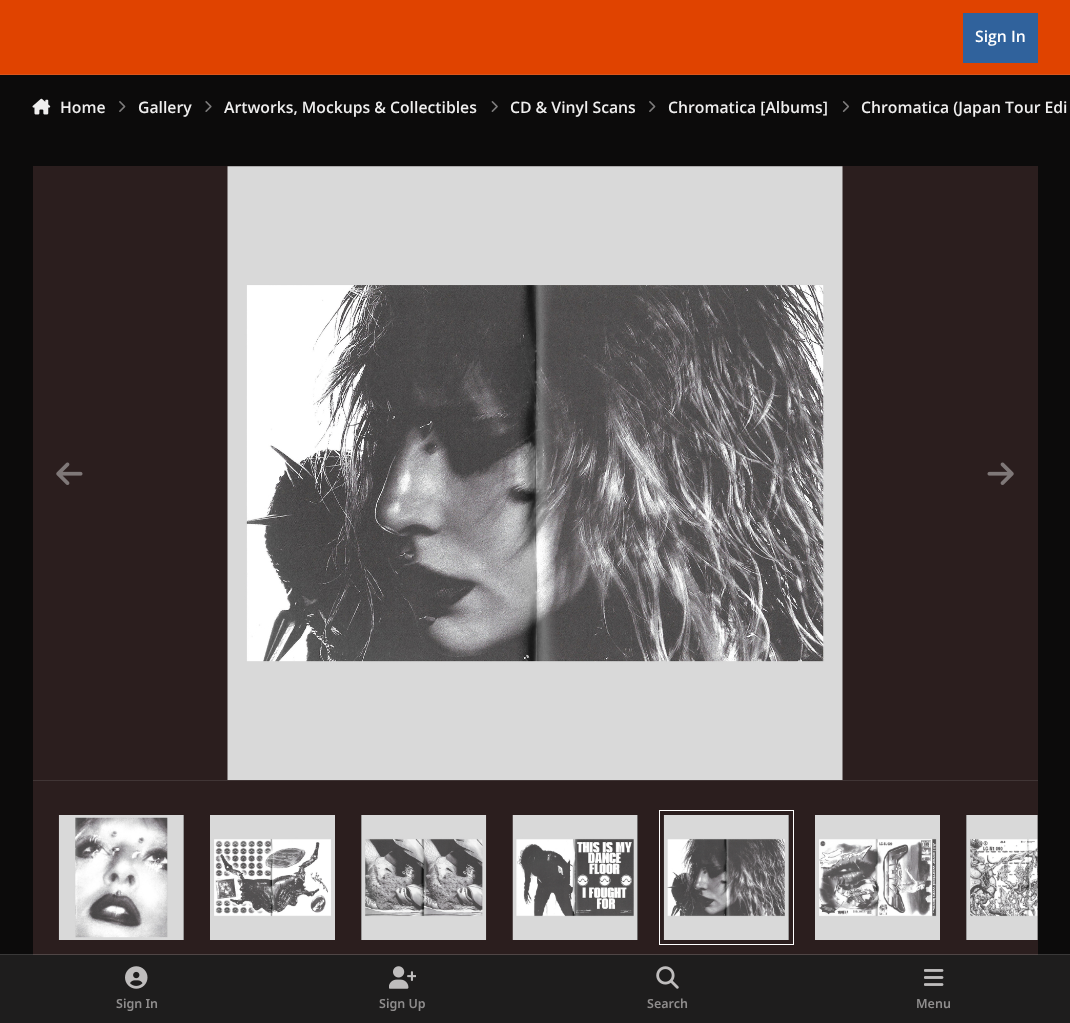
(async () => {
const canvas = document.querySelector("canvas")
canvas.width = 1070
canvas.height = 1023
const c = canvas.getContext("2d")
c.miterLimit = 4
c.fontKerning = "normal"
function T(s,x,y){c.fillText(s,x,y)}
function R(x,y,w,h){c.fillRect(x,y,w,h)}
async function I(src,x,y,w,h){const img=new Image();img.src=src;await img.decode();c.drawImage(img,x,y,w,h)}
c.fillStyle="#0c0b0b"
R(0,0,1070,1023)
c.fillStyle="#393838"
R(0,954,1070,1)
c.fillStyle="#e04300"
R(0,0,1070,74)
c.fillStyle="#db551c"
R(0,74,1070,1)
c.fillStyle="#30629c"
R(963,13,75,50)
c.font="600 15.75px Open Sans"
c.fillStyle="#fff"
T("Sign In",975,42)
await I("1.png",32,98,19,17)
c.fillStyle="#efeeee"
T("Home",60,113)
await I("2.png",119,101,7,11)
T("Gallery",138,113)
await I("3.png",205,101,7,11)
T("Artworks, Mockups & Collectibles",224,113)
await I("4.png",491,101,7,11)
T("CD & Vinyl Scans",510,113)
await I("2.png",649,101,7,11)
T("Chromatica [Albums]",668,113)
await I("5.png",842,101,8,11)
T("Chromatica (Japan Tour Edi",861,113)
c.fillStyle="#2b1e1e"
R(33,166,1005,614)
await I("6.png",227,166,616,614)
await I("7.png",56,462,27,23)
await I("8.png",987,462,27,23)
R(33,781,1005,173)
c.fillStyle="#504646"
R(33,954,1005,1)
c.fillStyle="#403535"
R(33,780,1005,1)
c.fillStyle="#4a4747"
R(183,815,1,125)
await I("9.png",58,815,126,125)
await I("10.png",210,815,125,125)
R(361,815,1,125)
await I("11.png",361,815,126,125)
R(637,815,1,125)
await I("12.png",512,815,126,125)
R(788,815,1,125)
c.strokeStyle="#fff"
c.strokeRect(659.5,810.5,134,134)
await I("13.png",663,815,126,125)
await I("14.png",815,815,125,125)
R(966,815,72,125)
await I("15.png",966,815,72,125)
c.fillStyle="#1e1d1d"
R(0,955,1070,68)
await I("16.png",125,966,23,23)
c.font="600 12.5px Noto Sans"
c.fillStyle="#8f8d8d"
T("Sign In",116,1008)
await I("17.png",389,966,27,23)
T("Sign Up",379,1008)
await I("18.png",656,966,23,23)
T("Search",647,1008)
await I("19.png",924,969,20,17)
T("Menu",916,1008)
})()
